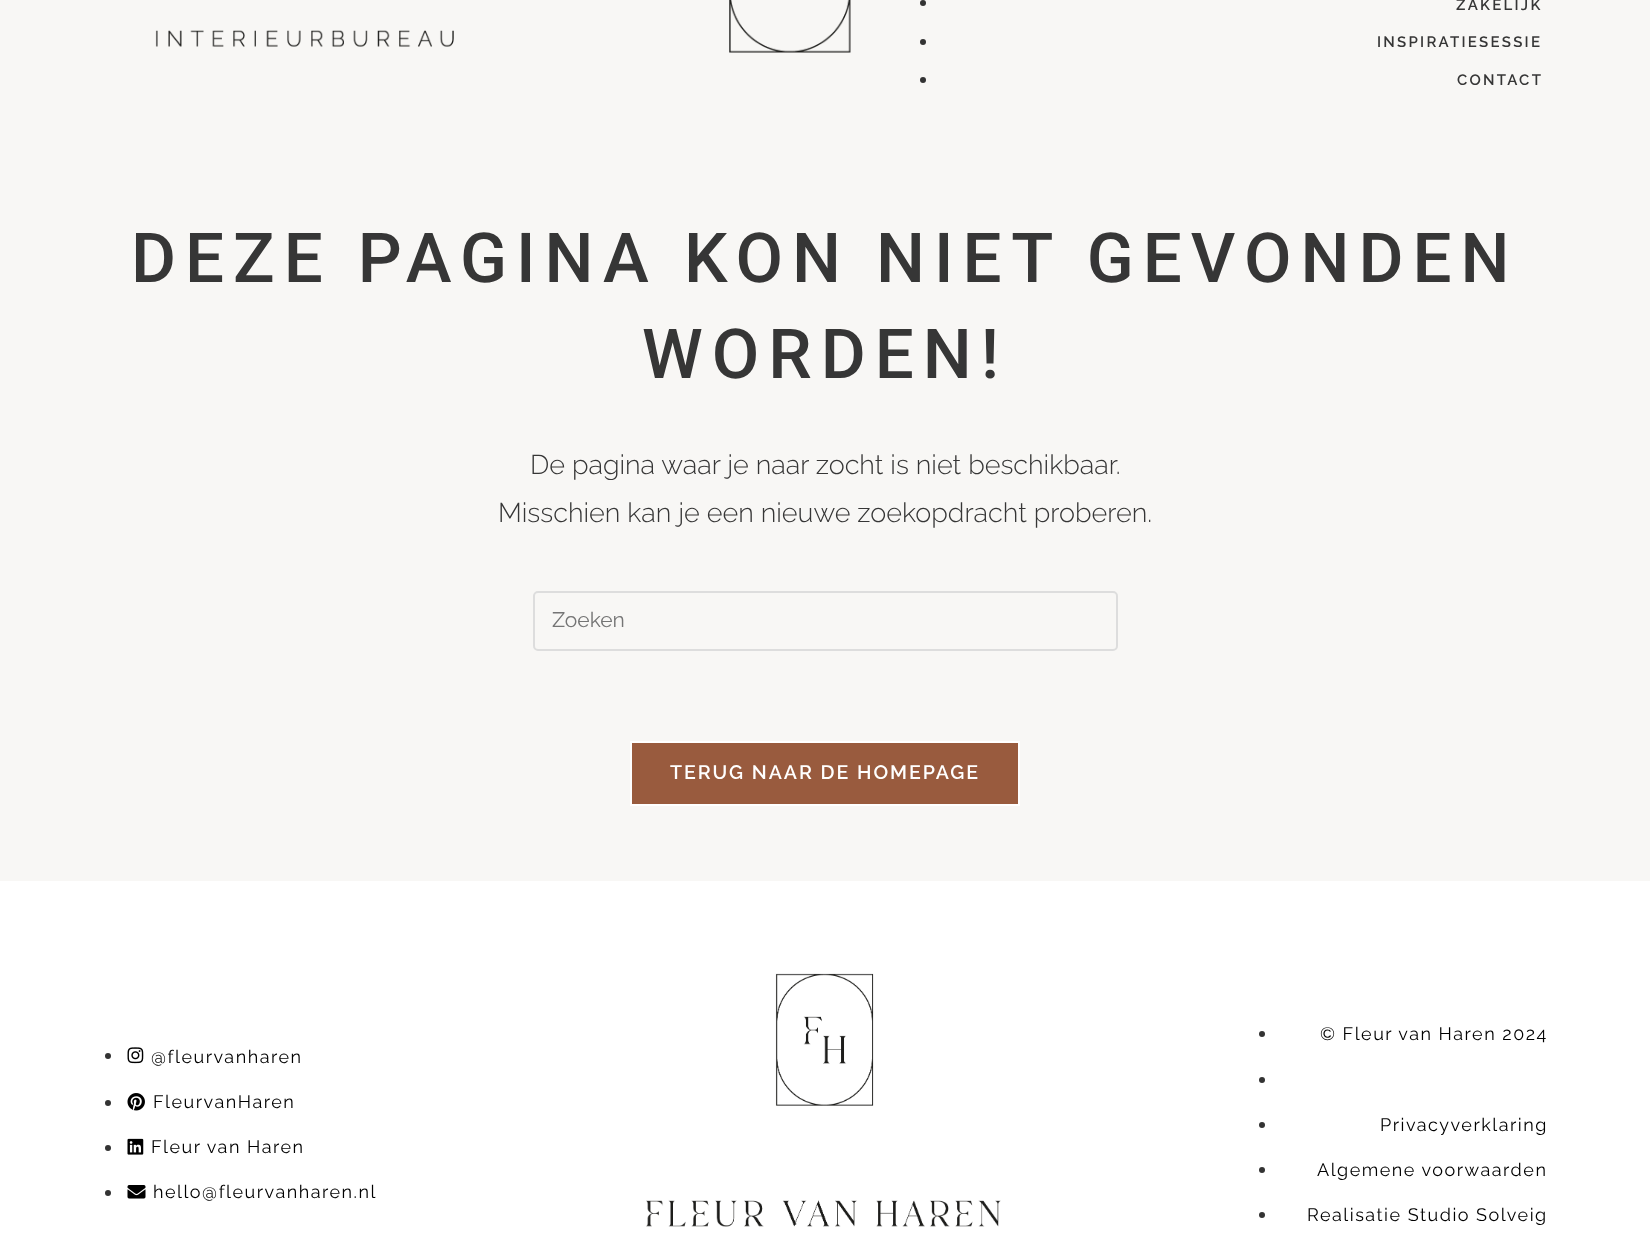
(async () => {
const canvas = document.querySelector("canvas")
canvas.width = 1650
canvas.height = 1254
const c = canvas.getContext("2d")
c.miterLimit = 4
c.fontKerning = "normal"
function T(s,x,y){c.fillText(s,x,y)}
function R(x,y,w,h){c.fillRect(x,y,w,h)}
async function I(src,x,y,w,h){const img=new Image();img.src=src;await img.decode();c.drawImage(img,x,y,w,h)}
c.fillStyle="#f8f7f5"
R(0,0,1650,1254)
await I("1.png",155,30,299,17)
await I("2.png",729,0,122,53)
c.fillStyle="#333"
c.beginPath()
c.arc(923,3,3,0,7)
c.fill()
c.letterSpacing="2.25px"
c.font="600 15px Raleway"
c.fillStyle="#363636"
T("ZAKELIJK",1456,10)
c.fillStyle="#333"
c.beginPath()
c.arc(923,42,3,0,7)
c.fill()
c.fillStyle="#363636"
T("INSPIRATIESESSIE",1377,47)
c.fillStyle="#333"
c.beginPath()
c.arc(923,80,3,0,7)
c.fill()
c.fillStyle="#363636"
T("CONTACT",1457,85)
c.letterSpacing="9px"
c.font="500 69px Roboto"
T("DEZE PAGINA KON NIET GEVONDEN",131,282)
T("WORDEN!",642,378)
c.letterSpacing="0px"
c.font="300 27px Raleway"
T("De pagina waar je naar zocht is niet beschikbaar.",530,474)
T("Misschien kan je een nieuwe zoekopdracht proberen.",498,522)
c.beginPath()
c.roundRect(534,592,583,58,4)
c.strokeStyle="#ddd"
c.lineWidth=2
c.stroke()
c.font="21px Raleway"
c.fillStyle="#757575"
T("Zoeken",552,627)
c.fillStyle="#995b3e"
c.beginPath()
c.rect(631,742,388,63)
c.fill()
c.strokeStyle="#fff"
c.stroke()
c.letterSpacing="1.95px"
c.font="600 19.5px Raleway"
c.fillStyle="#fff"
T("TERUG NAAR DE HOMEPAGE",670,779)
R(0,881,1650,373)
c.fillStyle="#333"
c.beginPath()
c.arc(108,1056,3,0,7)
c.fill()
await I("3.png",127,1047,17,17)
c.letterSpacing="1.5px"
c.font="18px Raleway"
c.fillStyle="#000"
T("@fleurvanharen",151,1063)
c.fillStyle="#333"
c.beginPath()
c.arc(108,1103,3,0,7)
c.fill()
await I("4.png",127,1093,18,18)
c.fillStyle="#000"
T("FleurvanHaren",153,1108)
c.fillStyle="#333"
c.beginPath()
c.arc(108,1148,3,0,7)
c.fill()
await I("5.png",127,1138,17,17)
c.fillStyle="#000"
T("Fleur van Haren",151,1153)
c.fillStyle="#333"
c.beginPath()
c.arc(108,1193,3,0,7)
c.fill()
await I("6.png",127,1185,19,14)
c.fillStyle="#000"
T("hello@fleurvanharen.nl",153,1198)
await I("7.png",646,973,355,254)
c.fillStyle="#333"
c.beginPath()
c.arc(1262,1034,3,0,7)
c.fill()
c.fillStyle="#000"
T("© Fleur van Haren 2024",1320,1040)
c.fillStyle="#333"
c.beginPath()
c.arc(1262,1080,3,0,7)
c.fill()
c.beginPath()
c.arc(1262,1125,3,0,7)
c.fill()
c.fillStyle="#000"
T("Privacyverklaring",1380,1131)
c.fillStyle="#333"
c.beginPath()
c.arc(1262,1170,3,0,7)
c.fill()
c.fillStyle="#000"
T("Algemene voorwaarden",1317,1176)
c.fillStyle="#333"
c.beginPath()
c.arc(1262,1215,3,0,7)
c.fill()
c.fillStyle="#000"
T("Realisatie Studio Solveig",1307,1221)
})()
